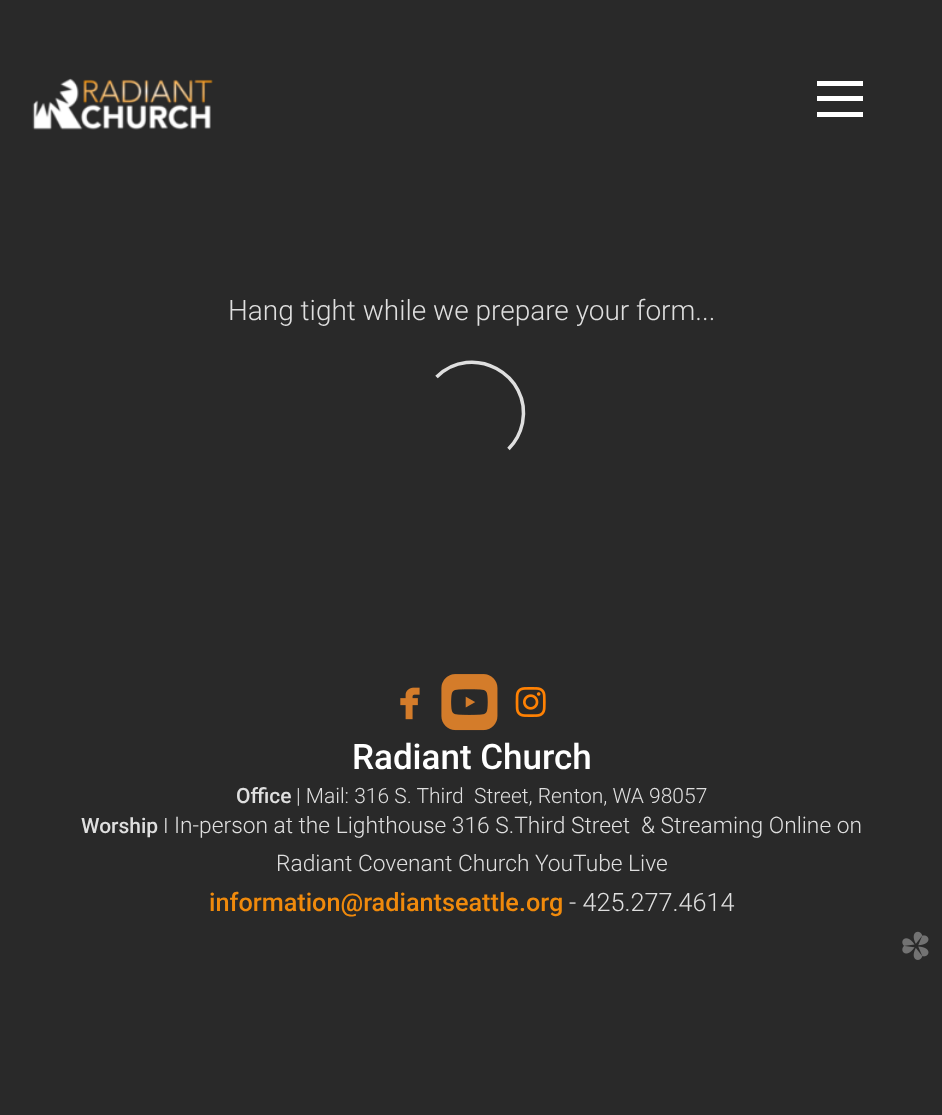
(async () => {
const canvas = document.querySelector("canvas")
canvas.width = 942
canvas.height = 1115
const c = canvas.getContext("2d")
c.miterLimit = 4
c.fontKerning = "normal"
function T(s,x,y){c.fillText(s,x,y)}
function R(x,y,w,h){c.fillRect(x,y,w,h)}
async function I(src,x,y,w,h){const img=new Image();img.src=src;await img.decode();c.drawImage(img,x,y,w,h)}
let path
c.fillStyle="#292929"
R(0,0,942,1115)
c.fillStyle="#fff"
R(817,81,46,5)
R(817,96,46,5)
R(817,112,46,5)
await I("1.png",32,78,181,52)
c.font="300 28px Roboto"
c.fillStyle="#dfdfdf"
T("Hang tight while we prepare your form...",228,320)
path = new Path2D("M436.5 377c35.5-35 95.5-3 86 46c-2 9.5-7 19-14 26")
c.strokeStyle="#dfdfdf"
c.lineWidth=3.5
c.stroke(path)
await I("2.png",400,687,20,33)
await I("3.png",441,674,57,57)
await I("4.png",515,687,31,30)
c.font="500 35px Roboto"
c.fillStyle="#fff"
T("Radiant Church",352,769)
c.font="500 21px Roboto"
c.fillStyle="#dfdfdf"
T("Office",236,803)
c.font="300 21px Roboto"
T("| Mail: 316 S. Third  Street, Renton, WA 98057",296,803)
c.font="500 21px Roboto"
T("Worship",81,833)
c.font="300 21px Roboto"
T("I",163,833)
c.font="300 22.75px Roboto"
T("In-person at the Lighthouse 316 S.Third Street",174,833)
T("& Streaming Online on",641,833)
T("Radiant Covenant Church YouTube Live",276,871)
c.font="500 25.25px Roboto"
c.fillStyle="#f08a0c"
T("information@radiantseattle.org",209,911)
c.font="300 25.25px Roboto"
c.fillStyle="#dfdfdf"
T("- 425.277.4614",569,911)
await I("5.png",902,931,27,29)
})()
